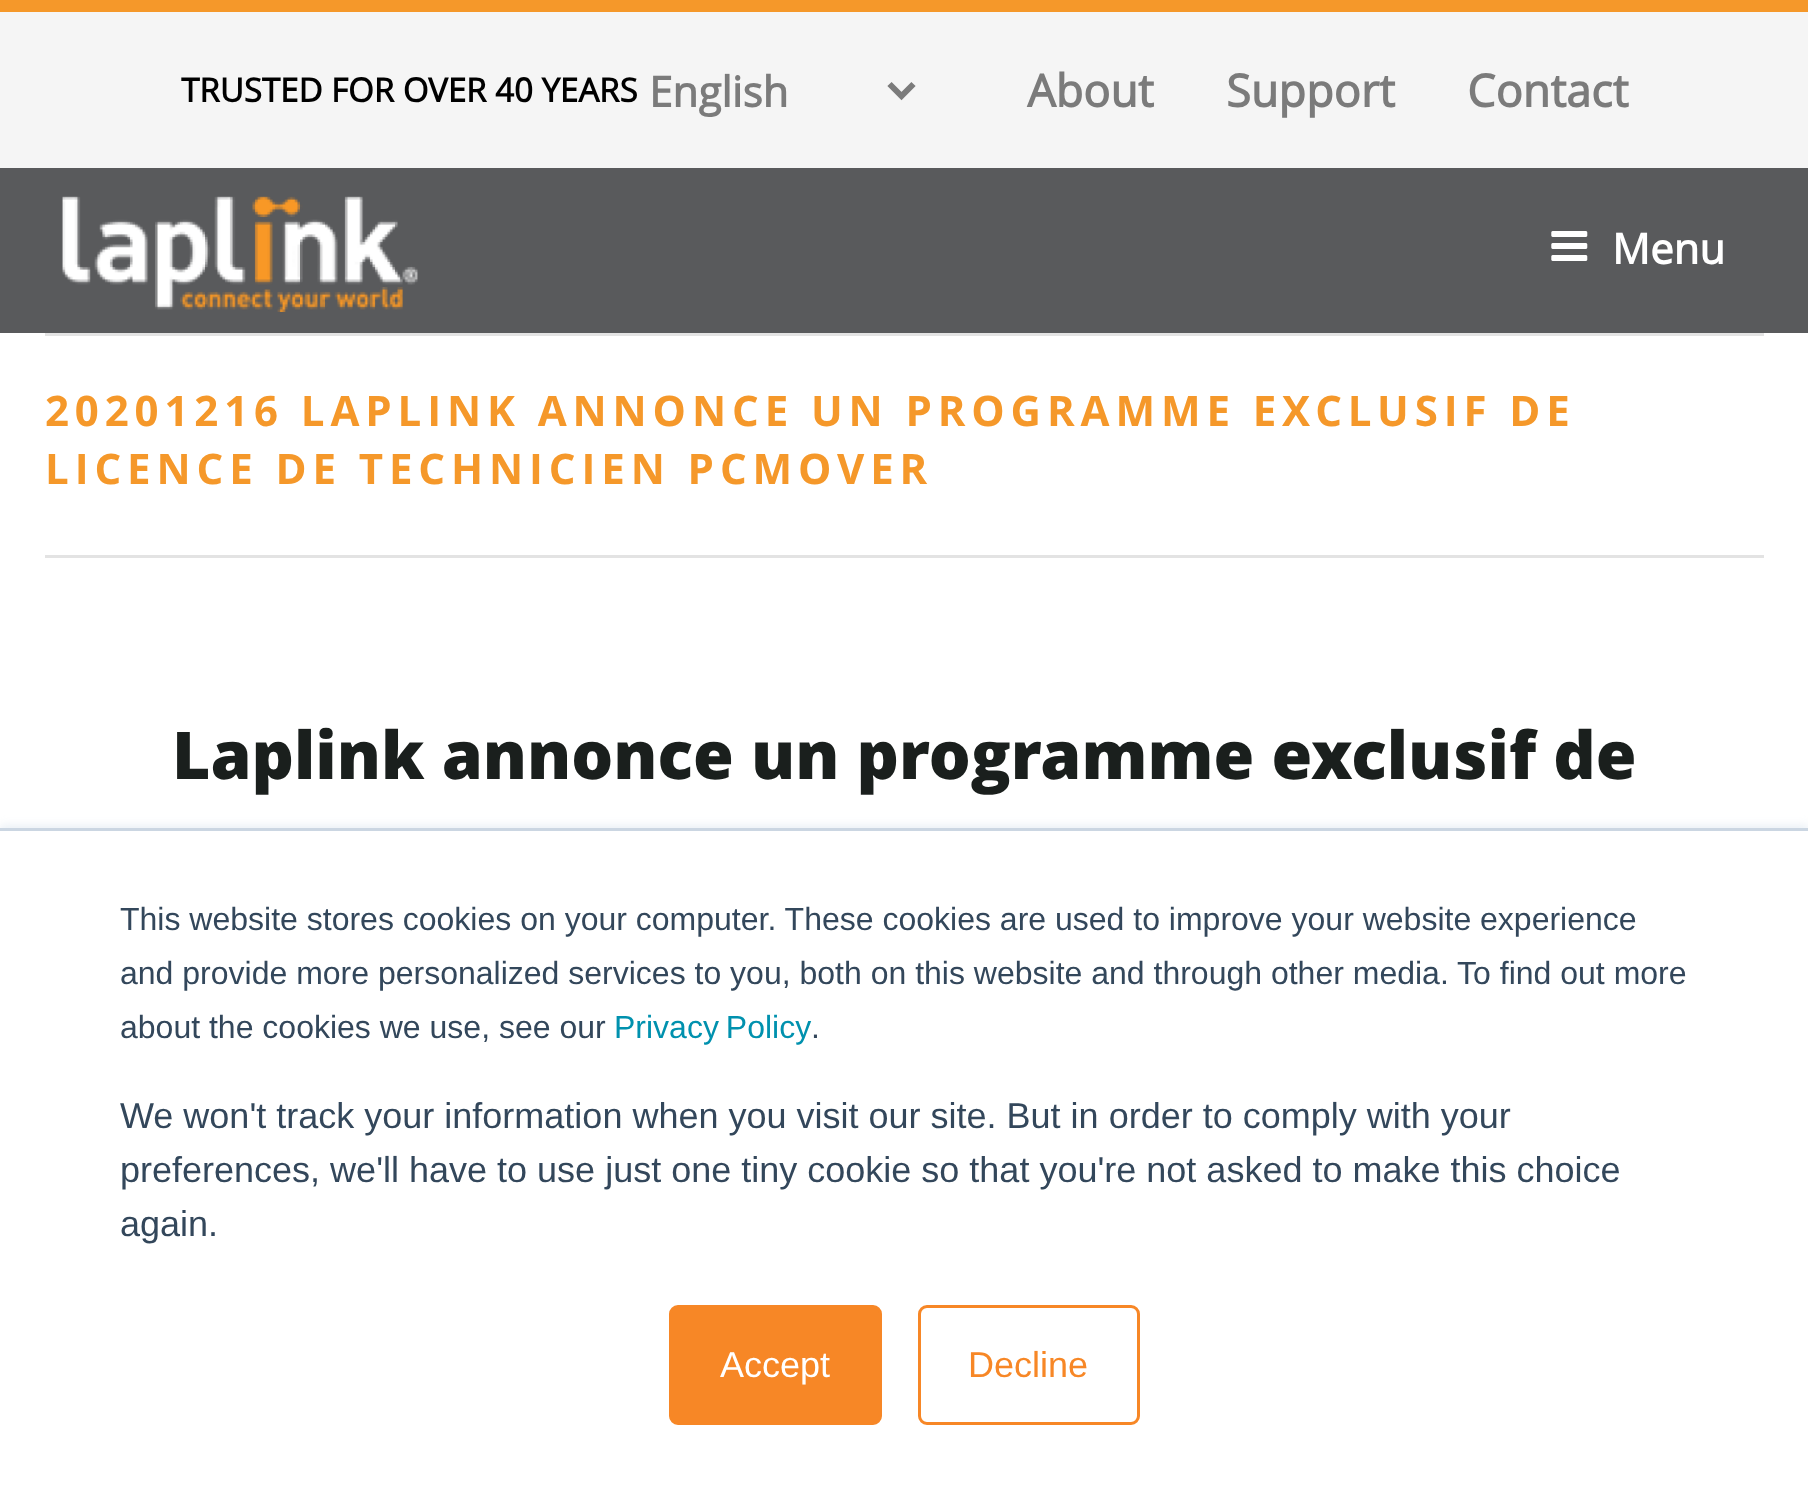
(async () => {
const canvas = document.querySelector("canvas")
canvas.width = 1808
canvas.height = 1502
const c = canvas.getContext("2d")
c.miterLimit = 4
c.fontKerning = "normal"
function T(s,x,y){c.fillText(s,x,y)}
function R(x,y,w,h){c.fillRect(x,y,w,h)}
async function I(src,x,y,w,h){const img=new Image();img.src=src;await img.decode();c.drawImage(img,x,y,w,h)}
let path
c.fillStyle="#fff"
R(0,0,1808,1502)
c.fillStyle="#f5f5f5"
R(0,12,1808,156)
c.fillStyle="#f5982a"
R(0,0,1808,12)
c.font="bold 33px Open Sans"
c.fillStyle="#000"
T("TRUSTED FOR OVER 40 YEARS",181,102)
path = new Path2D("M889.5 84l12 12l12-12")
c.strokeStyle="#7b7b7b"
c.lineWidth=6
c.stroke(path)
c.font="bold 42px Open Sans"
c.fillStyle="#7b7b7b"
T("English",649,107)
c.font="bold 45px Open Sans"
T("About",1027,107)
T("Support",1226,107)
T("Contact",1467,107)
c.fillStyle="#595a5c"
R(0,168,1808,165)
await I("1.png",62,196,356,116)
await I("2.png",1551,231,37,30)
c.font="bold 42px Open Sans"
c.fillStyle="#fff"
T("Menu",1612,264)
c.fillStyle="#e3e3e3"
R(45,333,1719,3)
R(45,555,1719,3)
c.letterSpacing="5.9px"
c.font="bold 42px 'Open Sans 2'"
c.fillStyle="#f5982a"
T("20201216 LAPLINK ANNONCE UN PROGRAMME EXCLUSIF DE",45,426)
T("LICENCE DE TECHNICIEN PCMOVER",45,484)
c.letterSpacing="0px"
c.font="800 66px Open Sans"
c.fillStyle="#1a1f1d"
T("Laplink annonce un programme exclusif de",172,779)
c.fillStyle="#eaf0f6"
c.filter="blur(4.5px)"
c.beginPath()
c.rect(0,825,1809,675)
c.fill()
c.filter="none"
c.fillStyle="#fff"
R(0,831,1808,671)
c.fillStyle="#cbd6e2"
R(0,828,1808,3)
c.font="32px Liberation Sans"
c.fillStyle="#33475b"
T("This website stores cookies on your computer. These cookies are used to improve your website experience",120,930)
T("and provide more personalized services to you, both on this website and through other media. To find out more",120,984)
T("about the cookies we use, see our",120,1038)
c.wordSpacing="-2px"
c.fillStyle="#0091ae"
T("Privacy Policy",614,1038)
c.wordSpacing="0px"
c.fillStyle="#33475b"
T(".",811,1038)
c.font="36px Liberation Sans"
T("We won't track your information when you visit our site. But in order to comply with your",120,1128)
T("preferences, we'll have to use just one tiny cookie so that you're not asked to make this choice",120,1182)
T("again.",120,1236)
c.fillStyle="#f78726"
c.beginPath()
c.roundRect(670.5,1306.5,210,117,7.5)
c.fill()
c.strokeStyle="#f78726"
c.lineWidth=3
c.stroke()
c.fillStyle="#fff"
T("Accept",720,1377)
c.beginPath()
c.roundRect(919.5,1306.5,219,117,7.5)
c.stroke()
c.fillStyle="#f78726"
T("Decline",968,1377)
})()
